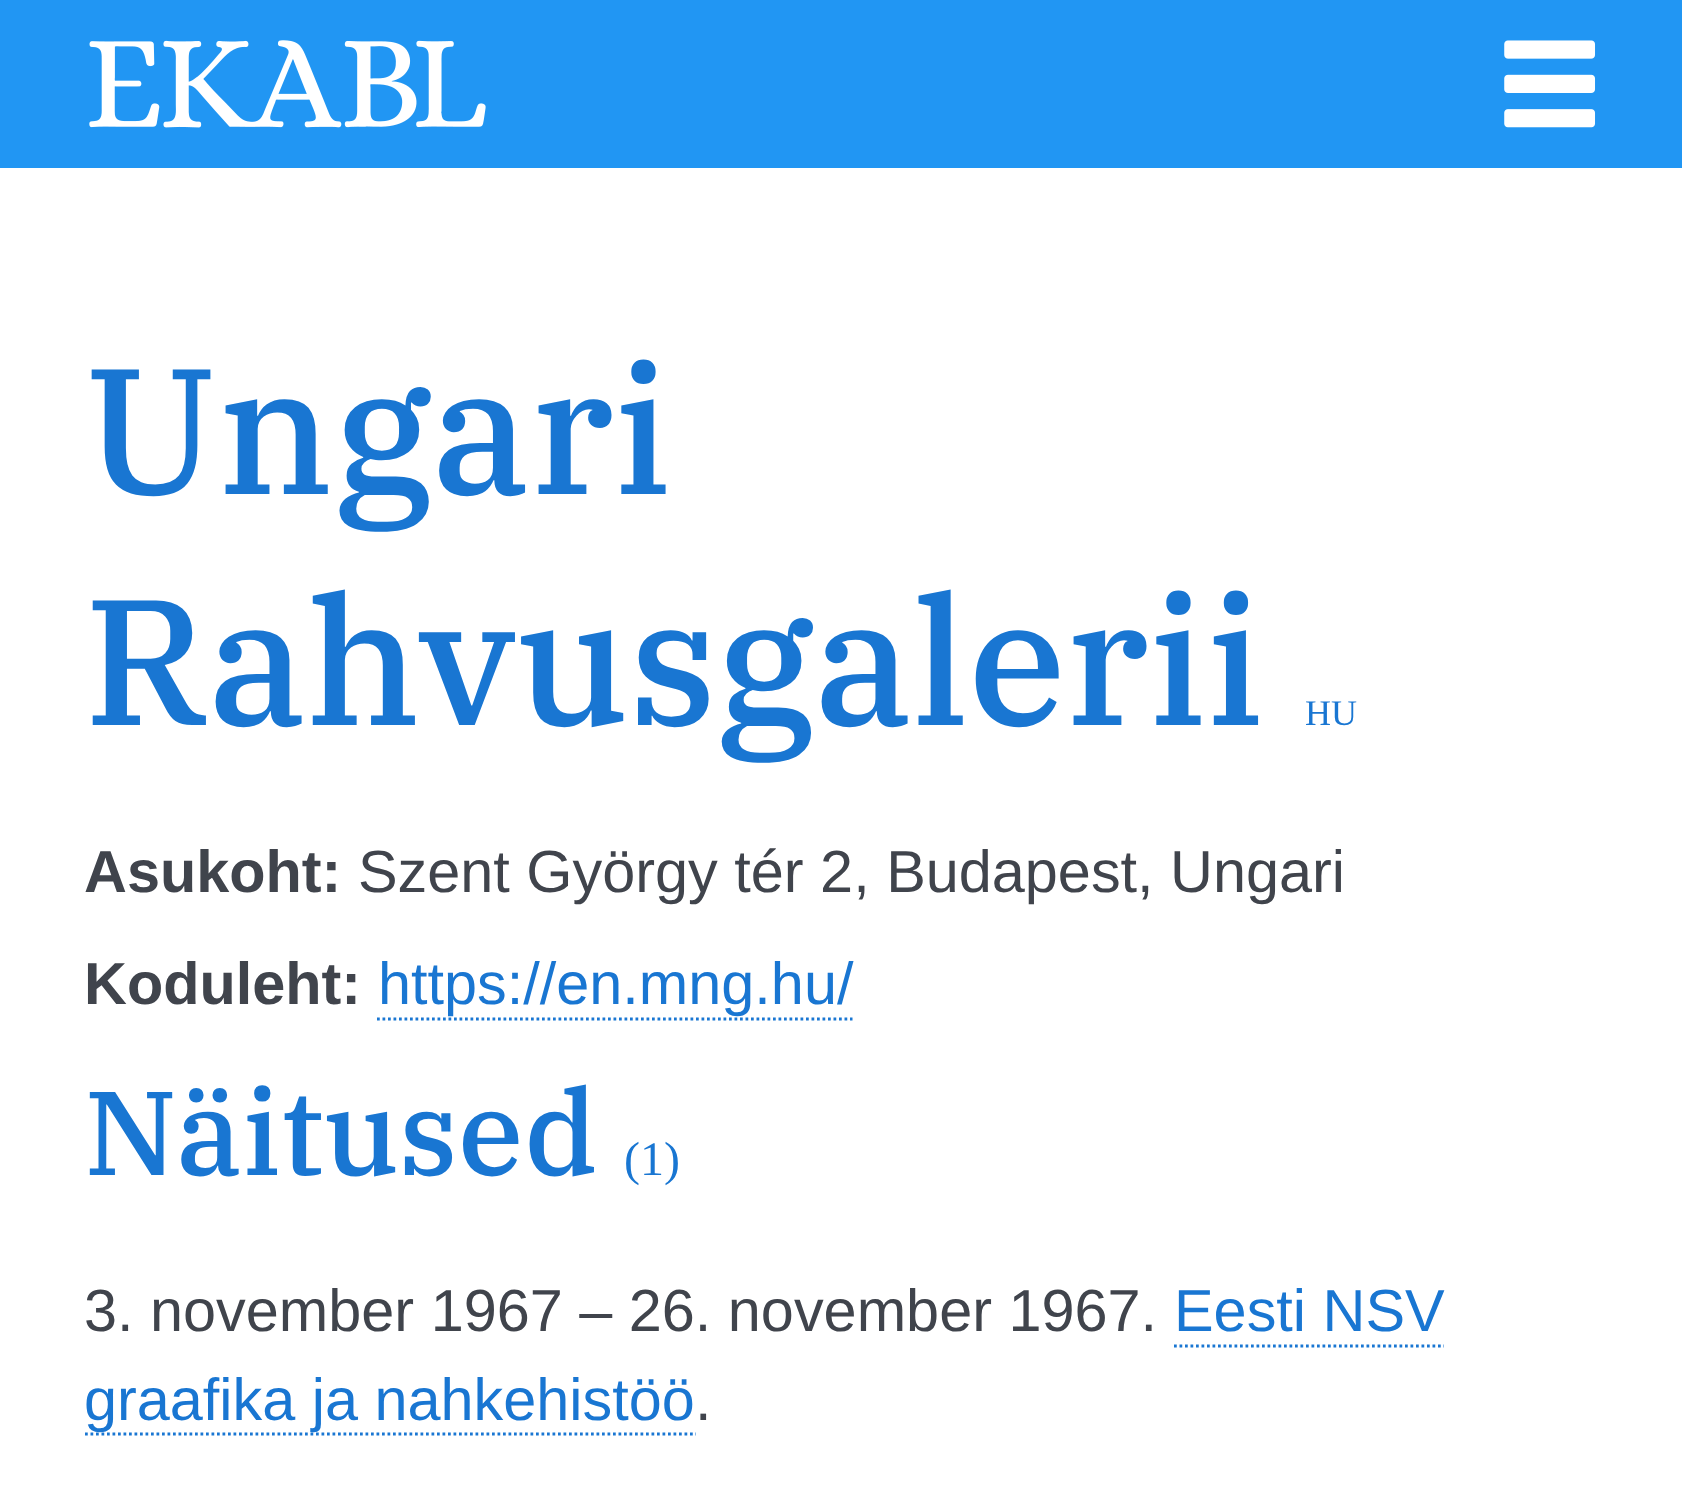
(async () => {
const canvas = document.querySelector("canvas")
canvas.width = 1682
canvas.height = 1510
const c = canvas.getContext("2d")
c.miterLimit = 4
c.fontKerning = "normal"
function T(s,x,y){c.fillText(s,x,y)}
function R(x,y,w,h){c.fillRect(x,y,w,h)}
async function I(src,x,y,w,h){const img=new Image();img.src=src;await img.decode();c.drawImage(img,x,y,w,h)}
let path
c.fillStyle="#fff"
R(0,0,1682,1510)
c.fillStyle="#2196f3"
R(0,0,1682,168)
await I("1.png",89,40,397,88)
await I("2.png",1504,40,92,88)
c.font="500 178.25px IBM Plex Serif"
c.fillStyle="#1976d2"
T("Ungari",84,494)
T("Rahvusgalerii",84,725)
c.font="36px Liberation Serif"
T("HU",1305,725)
c.font="bold 59.4px Liberation Sans"
c.fillStyle="#40444c"
T("Asukoht:",84,892)
c.font="59.4px Liberation Sans"
T("Szent György tér 2, Budapest, Ungari",358,892)
c.font="bold 59.4px Liberation Sans"
T("Koduleht:",84,1004)
c.font="59.4px Liberation Sans"
c.fillStyle="#1976d2"
T("https://en.mng.hu/",378,1004)
path = new Path2D("M377 1019h475.5")
c.strokeStyle="#1976d2"
c.lineWidth=2.8
c.setLineDash([2.75,2.75])
c.stroke(path)
c.font="500 119px IBM Plex Serif"
T("Näitused",84,1175)
c.font="48px Liberation Serif"
T("(1)",624,1175)
c.font="59.4px Liberation Sans"
c.fillStyle="#40444c"
T("3. november 1967 – 26. november 1967.",84,1331)
c.fillStyle="#1976d2"
T("Eesti NSV",1174,1331)
path = new Path2D("M1174 1346h270")
c.stroke(path)
path = new Path2D("M85 1434h611")
c.stroke(path)
T("graafika ja nahkehistöö",84,1420)
c.fillStyle="#40444c"
T(".",695,1420)
})()
